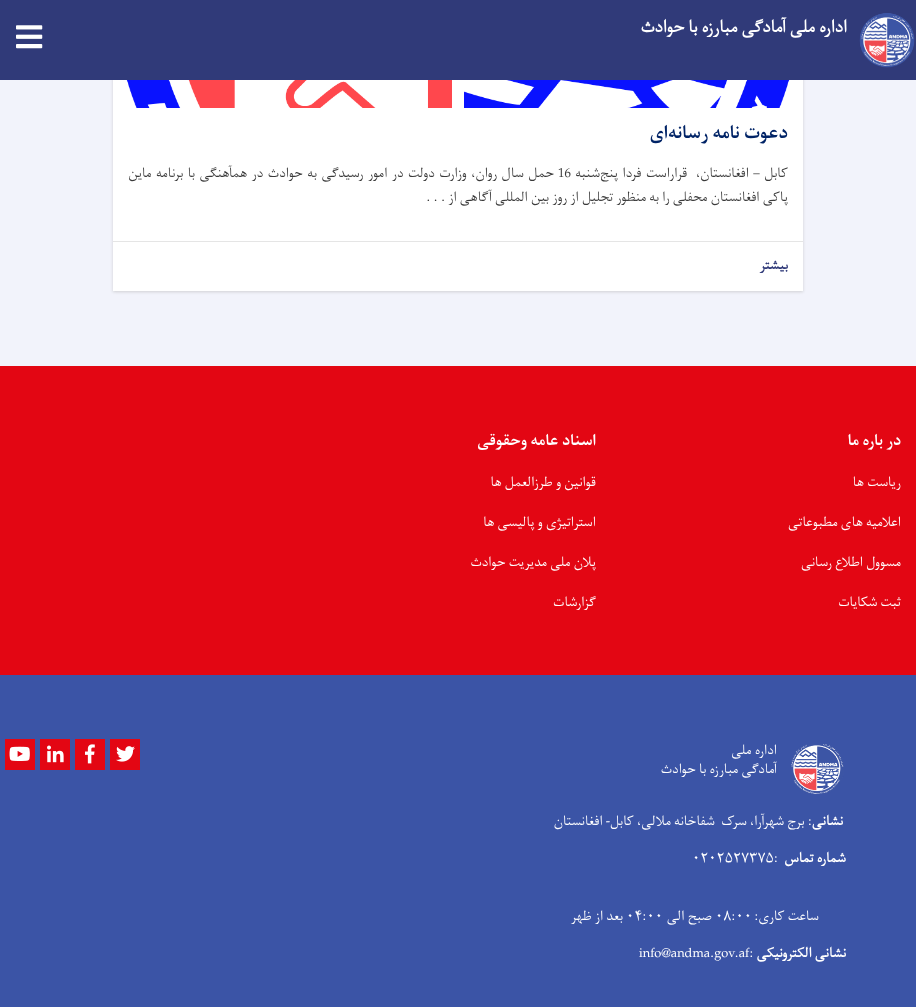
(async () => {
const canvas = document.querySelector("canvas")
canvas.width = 916
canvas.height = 1007
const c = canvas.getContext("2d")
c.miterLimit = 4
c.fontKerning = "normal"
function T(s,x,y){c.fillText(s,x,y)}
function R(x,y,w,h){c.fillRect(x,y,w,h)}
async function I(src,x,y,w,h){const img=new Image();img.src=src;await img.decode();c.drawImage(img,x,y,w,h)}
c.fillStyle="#f2f3fb"
R(0,0,916,1007)
c.fillStyle="#b9b9b999"
c.filter="blur(1.5px)"
c.beginPath()
c.rect(113,-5,690,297)
c.fill()
c.filter="none"
c.fillStyle="#303a79"
R(0,0,916,80)
await I("1.png",859,13,56,55)
c.direction="rtl"
c.font="bold 20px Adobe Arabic"
c.fillStyle="#fff"
T("اداره ملی آمادگی مبارزه با حوادث",847,32)
await I("2.png",16,25,27,24)
R(113,80,690,211)
await I("3.png",126,80,664,28)
c.font="bold 21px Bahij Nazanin"
c.fillStyle="#002366"
T("دعوت نامه رسانه‌ای",788,138)
c.wordSpacing="1.25px"
c.font="16px Adobe Arabic"
c.fillStyle="#3a3a3a"
T("کابل – افغانستان،  قراراست فردا پنج‌شنبه",788,177)
c.wordSpacing="0px"
c.direction="ltr"
T("16",558,177)
c.wordSpacing="1.25px"
c.direction="rtl"
T("حمل سال روان، وزارت دولت در امور رسیدگی به حوادث در همآهنگی با برنامه ماین",554,177)
c.wordSpacing="0px"
T("پاکی افغانستان محفلی را به منظور تجلیل از روز بین المللی آگاهی از . . .",788,201)
c.fillStyle="#e5e5e5"
R(113,241,690,1)
c.font="bold 16px Adobe Arabic"
c.fillStyle="#303a79"
T("بیشتر",788,269)
c.fillStyle="#e30613"
R(0,366,916,309)
c.font="bold 18px Bahij Nazanin"
c.fillStyle="#fff"
T("در باره ما",901,445)
c.font="16px Adobe Arabic"
T("ریاست ها",901,486)
T("اعلامیه های مطبوعاتی",901,526)
T("مسوول اطلاع رسانی",901,566)
T("ثبت شکایات",901,606)
c.font="bold 18px Bahij Nazanin"
T("اسناد عامه وحقوقی",596,445)
c.font="16px Adobe Arabic"
T("قوانین و طرزالعمل ها",596,486)
T("استراتیژی و پالیسی ها",596,526)
T("پلان ملی مدیریت حوادث",596,566)
T("گزارشات",596,606)
c.fillStyle="#3b54a6"
R(0,675,916,332)
await I("4.png",791,744,53,50)
c.fillStyle="#fff"
T("اداره ملی",777,754)
T("آمادگی مبارزه با حوادث",777,773)
c.fillStyle="#e30613"
R(110,739,30,31)
await I("5.png",116,746,19,16)
R(75,739,30,31)
await I("6.png",85,744,10,20)
R(40,739,30,31)
await I("7.png",47,745,17,18)
R(5,739,30,31)
await I("8.png",9,746,21,15)
c.font="bold 16px Adobe Arabic"
c.fillStyle="#fff"
T("نشانی",843,825)
c.font="16px Adobe Arabic"
T(": برج شهرآرا، سرک  شفاخانه ملالی، کابل- افغانستان",812,825)
c.font="bold 16px Adobe Arabic"
T("شماره تماس",846,862)
c.direction="ltr"
c.font="16px Adobe Arabic"
T("۰۲۰۲۵۲۷۳۷۵:",692,862)
c.direction="rtl"
T("ساعت کاری:",819,920)
c.direction="ltr"
T("۰۸:۰۰",715,920)
c.direction="rtl"
T("صبح الی",712,920)
c.direction="ltr"
T("۰۴:۰۰",626,920)
c.direction="rtl"
T("بعد از ظهر",623,920)
c.font="bold 16px Adobe Arabic"
T("نشانی الکترونیکی",846,957)
c.direction="ltr"
c.font="16px Adobe Arabic"
T("info@andma.gov.af:",639,957)
})()
